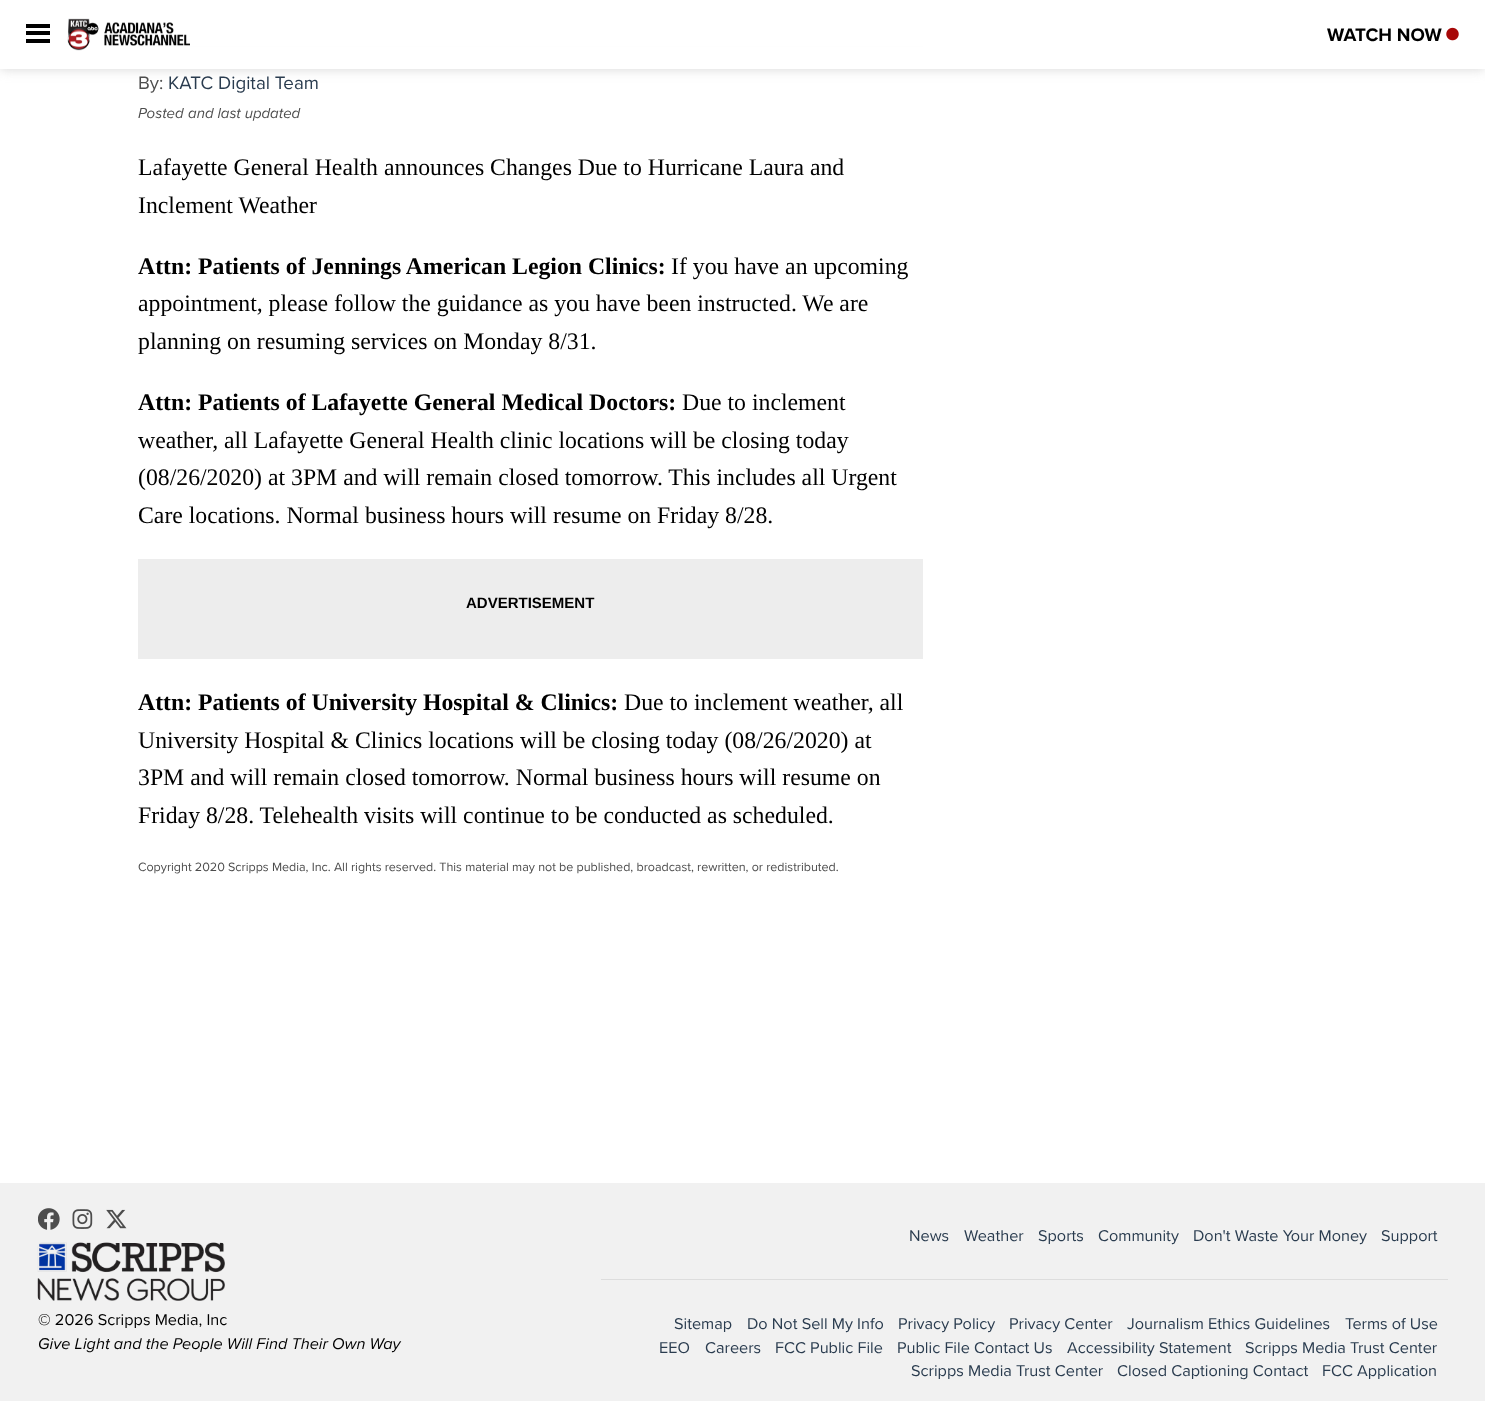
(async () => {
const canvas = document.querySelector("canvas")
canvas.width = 1485
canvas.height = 1401
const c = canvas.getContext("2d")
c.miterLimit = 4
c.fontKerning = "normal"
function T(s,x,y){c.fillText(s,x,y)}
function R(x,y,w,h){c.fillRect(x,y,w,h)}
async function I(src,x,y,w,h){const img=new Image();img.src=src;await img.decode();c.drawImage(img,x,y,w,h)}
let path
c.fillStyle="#fff"
R(0,0,1485,1401)
c.fillStyle="#ccc"
R(138,46,785,1)
c.save()
path = new Path2D("M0 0h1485v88h-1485zm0 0h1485v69h-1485z")
c.clip(path,"evenodd")
c.fillStyle="#cccccccc"
c.filter="blur(6px)"
c.beginPath()
c.rect(0,0,1485,69)
c.fill()
c.filter="none"
c.restore()
c.fillStyle="#fffffffa"
R(0,46,1485,23)
c.fillStyle="#000"
R(26,24,24,4)
R(26,31,24,4)
R(26,39,24,4)
await I("1.png",67,18,123,33)
c.font="bold 18.75px Proxima Nova"
T("WATCH NOW",1327,41)
await I("2.png",1446,27,13,14)
c.font="18.75px Proxima Nova"
c.fillStyle="#4d4d4d"
T("By:",138,89)
c.fillStyle="#2a3c4f"
T("KATC Digital Team",168,89)
c.font="italic 15px Proxima Nova"
c.fillStyle="#4d4d4d"
T("Posted",138,118)
T("and last updated",188,118)
c.font="23.75px Liberation Serif"
c.fillStyle="#000"
T("Lafayette General Health announces Changes Due to Hurricane Laura and",138,175)
T("Inclement Weather",138,213)
c.font="bold 23.75px Liberation Serif"
T("Attn: Patients of Jennings American Legion Clinics:",138,274)
c.font="23.75px Liberation Serif"
T("If you have an upcoming",671,274)
T("appointment, please follow the guidance as you have been instructed. We are",138,311)
T("planning on resuming services on Monday 8/31.",138,349)
c.font="bold 23.75px Liberation Serif"
T("Attn: Patients of Lafayette General Medical Doctors:",138,410)
c.font="23.75px Liberation Serif"
T("Due to inclement",682,410)
T("weather, all Lafayette General Health clinic locations will be closing today",138,448)
T("(08/26/2020) at 3PM and will remain closed tomorrow. This includes all Urgent",138,485)
T("Care locations. Normal business hours will resume on Friday 8/28.",138,523)
c.fillStyle="#ededed"
R(138,559,785,100)
c.font="bold 15px Liberation Sans"
c.fillStyle="#000"
T("ADVERTISEMENT",466,608)
c.font="bold 23.75px Liberation Serif"
T("Attn: Patients of University Hospital & Clinics:",138,710)
c.font="23.75px Liberation Serif"
T("Due to inclement weather, all",624,710)
T("University Hospital & Clinics locations will be closing today (08/26/2020) at",138,748)
T("3PM and will remain closed tomorrow. Normal business hours will resume on",138,785)
T("Friday 8/28. Telehealth visits will continue to be conducted as scheduled.",138,823)
c.font="12.5px Proxima Nova"
c.fillStyle="#4d4d4d"
T("Copyright 2020 Scripps Media, Inc. All rights reserved. This material may not be published, broadcast, rewritten, or redistributed.",138,871)
c.fillStyle="#f1f1f1"
R(0,1183,1485,218)
await I("3.png",38,1208,22,22)
await I("4.png",72,1209,21,20)
await I("5.png",106,1209,21,20)
await I("6.png",37,1242,188,59)
c.font="16.25px Proxima Nova"
c.fillStyle="#000"
T("© 2026 Scripps Media, Inc",38,1325)
c.font="italic 16.25px Proxima Nova"
T("Give Light and the People Will Find Their Own Way",38,1349)
c.font="16.25px Proxima Nova"
c.fillStyle="#2a3c4f"
T("News",909,1241)
T("Weather",964,1241)
T("Sports",1038,1241)
T("Community",1098,1241)
T("Don't Waste Your Money",1193,1241)
T("Support",1381,1241)
c.fillStyle="#ddd"
R(601,1279,847,1)
c.fillStyle="#2a3c4f"
T("Sitemap",674,1329)
T("Do Not Sell My Info",747,1329)
T("Privacy Policy",898,1329)
T("Privacy Center",1009,1329)
T("Journalism Ethics Guidelines",1127,1329)
T("Terms of Use",1345,1329)
T("EEO",659,1353)
T("Careers",705,1353)
T("FCC Public File",775,1353)
T("Public File Contact Us",897,1353)
T("Accessibility Statement",1067,1353)
T("Scripps Media Trust Center",1245,1353)
T("Scripps Media Trust Center",911,1376)
T("Closed Captioning Contact",1117,1376)
T("FCC Application",1322,1376)
})()
